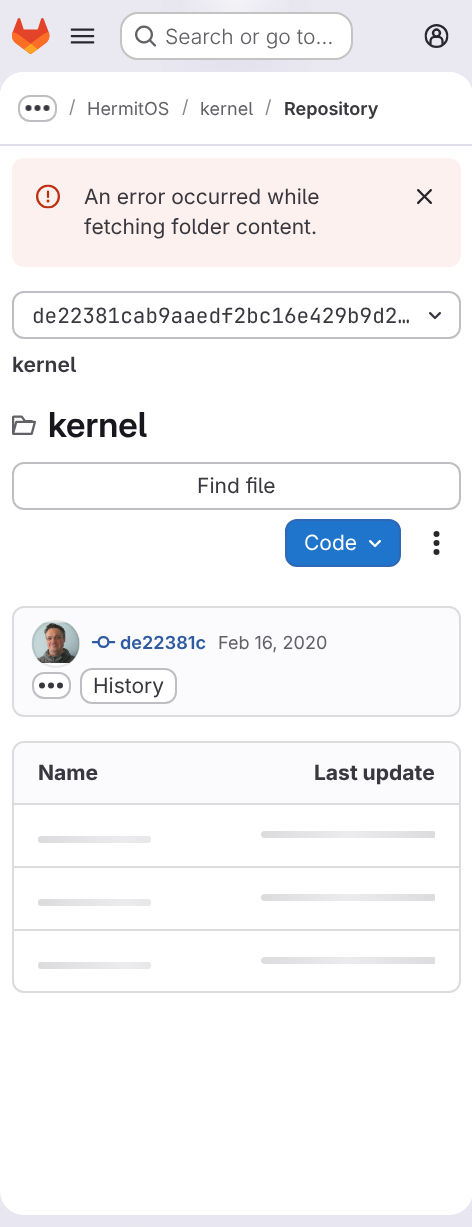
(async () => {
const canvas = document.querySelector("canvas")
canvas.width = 472
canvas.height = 1227
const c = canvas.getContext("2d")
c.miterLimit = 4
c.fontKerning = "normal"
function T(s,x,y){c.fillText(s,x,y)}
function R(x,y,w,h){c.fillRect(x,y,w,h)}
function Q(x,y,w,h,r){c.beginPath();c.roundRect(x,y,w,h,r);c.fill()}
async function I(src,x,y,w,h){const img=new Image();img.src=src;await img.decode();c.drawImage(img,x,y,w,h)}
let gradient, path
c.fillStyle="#fff"
R(0,0,472,1227)
gradient = c.createLinearGradient(348,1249,124,-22)
gradient.addColorStop(0,"#e8e6f0")
gradient.addColorStop(.7,"#eae9f2")
c.fillStyle = gradient
R(0,0,472,1227)
gradient = c.createRadialGradient(236,0,0,236,0,236)
gradient.addColorStop(0,"#e4e2ed")
gradient.addColorStop(.44,"#e4e2ed00")
c.fillStyle = gradient
c.beginPath()
c.rect(161,0,150,72)
c.save()
c.clip()
c.scale(1,1227 / 236)
c.fillRect(0,0,472,236)
c.restore()
gradient = c.createRadialGradient(236,0,0,236,0,236)
gradient.addColorStop(0,"#e4e2ec")
gradient.addColorStop(.32,"#e4e2ec00")
c.fillStyle = gradient
c.beginPath()
c.rect(200,3,72,66)
c.save()
c.clip()
c.scale(1,1227 / 236)
c.fillRect(0,0,472,236)
c.restore()
gradient = c.createRadialGradient(236,0,0,236,0,1250)
gradient.addColorStop(0,"#ffffff99")
gradient.addColorStop(.05,"#ffffff00")
c.fillStyle = gradient
R(183,0,106,12)
await I("1.png",12,18,38,36)
await I("2.png",70,28,25,16)
c.fillStyle="#fff"
Q(120,12,233,48,18)
c.beginPath()
c.roundRect(121,13,231,46,17)
c.strokeStyle="#0505063d"
c.lineWidth=2
c.stroke()
await I("3.png",135,25,21,22)
c.font="300 21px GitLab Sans"
c.fillStyle="#626168"
T("Search or go to…",165,44)
await I("4.png",424,24,25,24)
c.fillStyle="#fff"
Q(0,72,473,1143,24)
path = new Path2D("M24 72h425c13.5 0 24 10.5 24 24v50h-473v-50c0-13.5 10.5-24 24-24z")
c.fill(path)
c.fillStyle="#e1dfec"
R(0,144,472,2)
c.beginPath()
c.roundRect(19,96,37,25,11)
c.strokeStyle="#bfbfc3"
c.stroke()
await I("5.png",25,105,25,6)
c.font="18px GitLab Sans"
c.fillStyle="#89888d"
T("/",69,113)
c.fillStyle="#626168"
T("HermitOS",87,115)
c.fillStyle="#89888d"
T("/",182,113)
c.fillStyle="#626168"
T("kernel",200,115)
c.fillStyle="#89888d"
T("/",265,113)
c.font="600 18px 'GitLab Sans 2'"
c.fillStyle="#3a383f"
T("Repository",284,115)
c.fillStyle="#fcf1ef"
Q(12,158,449,109,12)
await I("6.png",36,184,24,25)
c.font="21px GitLab Sans"
c.fillStyle="#3a383f"
T("An error occurred while",84,204)
T("fetching folder content.",84,234)
await I("7.png",417,189,15,15)
c.beginPath()
c.roundRect(13,292,447,46,11)
c.stroke()
c.font="21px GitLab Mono"
T("de22381cab9aaedf2bc16e429b9d2…",32,323)
await I("8.png",429,312,12,8)
c.font="600 21px 'GitLab Sans 2'"
T("kernel",12,372)
await I("9.png",12,415,24,20)
c.font="600 34.5px GitLab Sans"
c.fillStyle="#18171d"
T("kernel",48,437)
c.beginPath()
c.roundRect(13,463,447,46,11)
c.stroke()
c.font="21px GitLab Sans"
c.fillStyle="#3a383f"
T("Find file",197,493)
c.fillStyle="#1f75cb"
c.beginPath()
c.roundRect(286,520,114,46,11)
c.fill()
c.strokeStyle="#2f68b4"
c.stroke()
c.fillStyle="#fff"
T("Code",304,550)
await I("10.png",369,540,12,8)
await I("11.png",433,531,7,24)
c.fillStyle="#fbfafd"
c.beginPath()
c.roundRect(13,607,447,109,11)
c.fill()
c.strokeStyle="#dcdcde"
c.stroke()
await I("12.png",31,622,49,41)
c.beginPath()
c.arc(56,644,23,0,7)
c.strokeStyle="#05050614"
c.stroke()
await I("13.png",91,636,25,12)
c.font="600 18px 'GitLab Sans 2'"
c.fillStyle="#2f5ca0"
T("de22381c",120,649)
c.font="18px GitLab Sans"
c.fillStyle="#626168"
T("Feb 16, 2020",218,649)
c.fillStyle="#fff"
c.beginPath()
c.roundRect(33,673,37,25,11)
c.fill()
c.strokeStyle="#bfbfc3"
c.stroke()
await I("14.png",39,682,24,7)
c.beginPath()
c.roundRect(81,669,95,34,11)
c.fill()
c.stroke()
c.font="21px GitLab Sans"
c.fillStyle="#3a383f"
T("History",93,693)
c.beginPath()
c.roundRect(13,742,447,250,11)
c.strokeStyle="#dcdcde"
c.stroke()
c.fillStyle="#fbfafd"
c.beginPath()
c.roundRect(14,743,223,60,[11,0,0,0])
c.fill()
c.font="bold 21px GitLab Sans"
c.fillStyle="#3a383f"
T("Name",38,780)
c.fillStyle="#fbfafd"
c.beginPath()
c.roundRect(237,743,222,60,[0,11,0,0])
c.fill()
c.fillStyle="#3a383f"
T("Last update",314,780)
c.fillStyle="#dcdcde"
R(14,803,445,2)
c.save()
c.beginPath()
c.roundRect(261,831,175,7,3)
c.clip()
gradient = c.createLinearGradient(261,831,436,831)
gradient.addColorStop(0,"#dcdcde")
gradient.addColorStop(.5,"#ececef")
gradient.addColorStop(1,"#dcdcde")
c.fillStyle = gradient
c.beginPath()
c.roundRect(261,831,174,7,[3,0,0,3])
c.fill()
c.restore()
gradient = c.createLinearGradient(38,836,212,836)
gradient.addColorStop(0,"#dcdcde")
gradient.addColorStop(.5,"#ececef")
gradient.addColorStop(1,"#dcdcde")
c.fillStyle = gradient
Q(38,836,113,7,3)
c.fillStyle="#dcdcde"
R(14,866,445,2)
c.save()
c.beginPath()
c.roundRect(261,894,175,7,3)
c.clip()
gradient = c.createLinearGradient(261,894,436,894)
gradient.addColorStop(0,"#dcdcde")
gradient.addColorStop(.5,"#ececef")
gradient.addColorStop(1,"#dcdcde")
c.fillStyle = gradient
c.beginPath()
c.roundRect(261,894,174,7,[3,0,0,3])
c.fill()
c.restore()
gradient = c.createLinearGradient(38,899,212,899)
gradient.addColorStop(0,"#dcdcde")
gradient.addColorStop(.5,"#ececef")
gradient.addColorStop(1,"#dcdcde")
c.fillStyle = gradient
Q(38,899,113,7,3)
c.fillStyle="#dcdcde"
R(14,929,445,2)
c.save()
c.beginPath()
c.roundRect(261,957,175,7,3)
c.clip()
gradient = c.createLinearGradient(261,957,436,957)
gradient.addColorStop(0,"#dcdcde")
gradient.addColorStop(.5,"#ececef")
gradient.addColorStop(1,"#dcdcde")
c.fillStyle = gradient
c.beginPath()
c.roundRect(261,957,174,7,[3,0,0,3])
c.fill()
c.restore()
gradient = c.createLinearGradient(38,962,212,962)
gradient.addColorStop(0,"#dcdcde")
gradient.addColorStop(.5,"#ececef")
gradient.addColorStop(1,"#dcdcde")
c.fillStyle = gradient
Q(38,962,113,7,3)
})()
